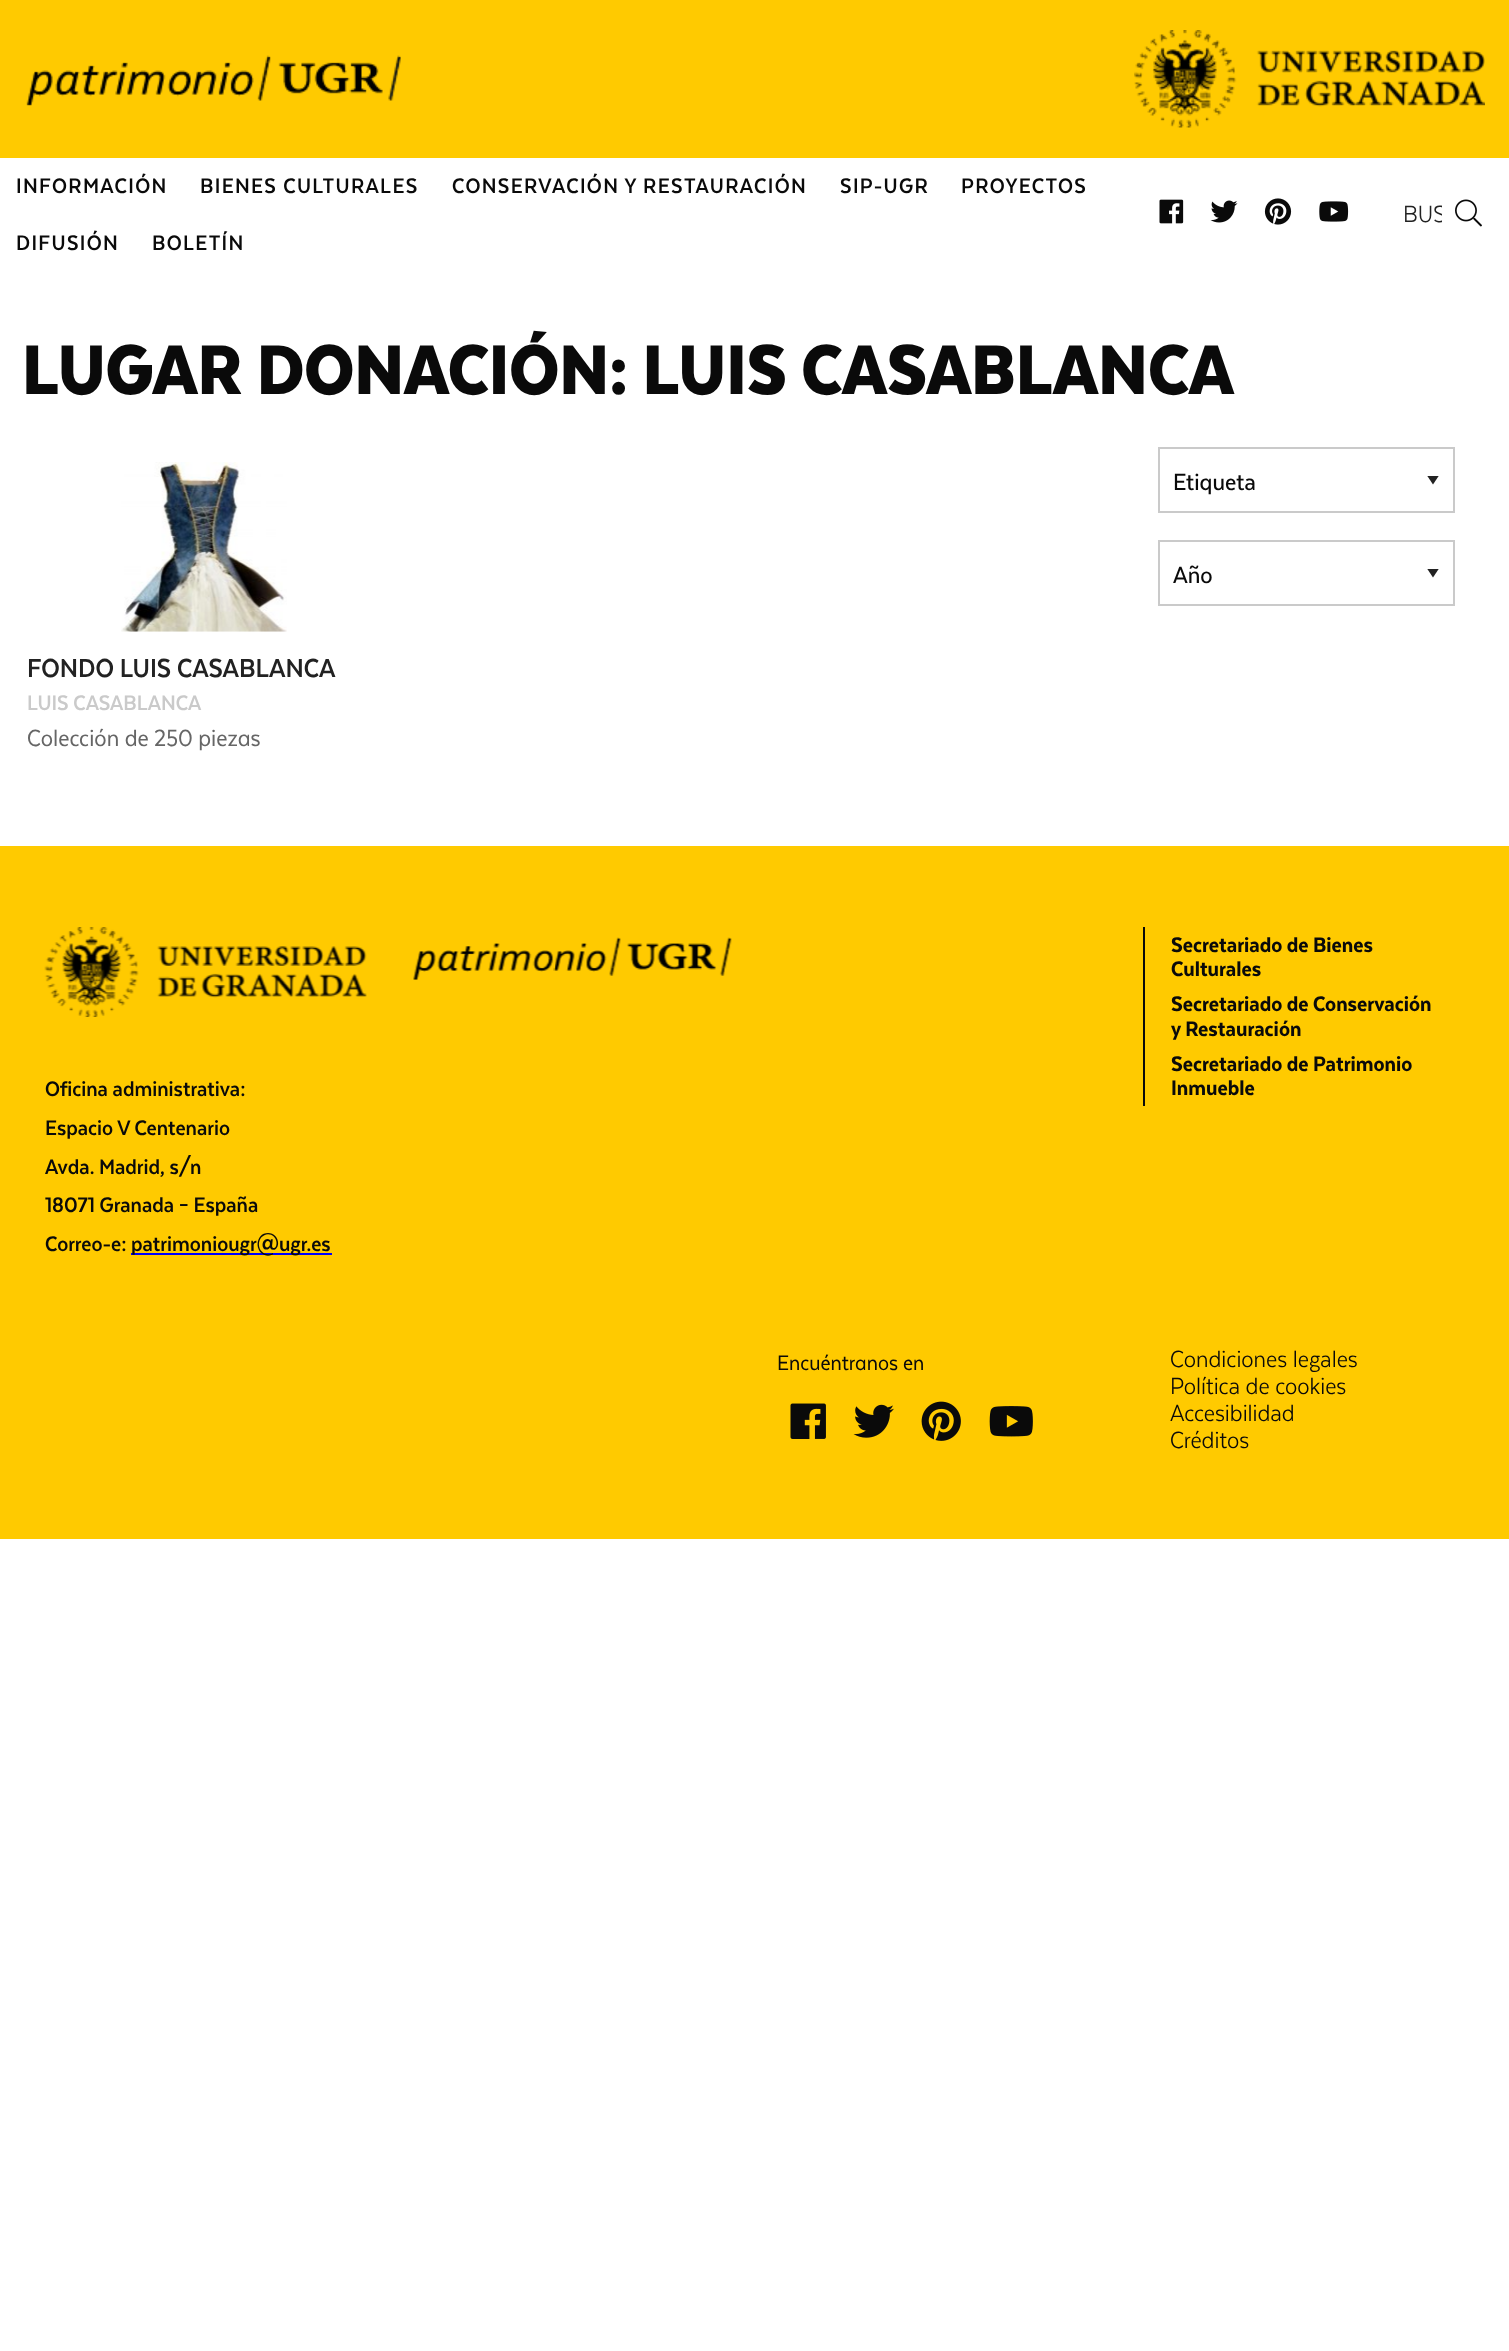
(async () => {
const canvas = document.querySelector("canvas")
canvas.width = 1509
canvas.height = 2351
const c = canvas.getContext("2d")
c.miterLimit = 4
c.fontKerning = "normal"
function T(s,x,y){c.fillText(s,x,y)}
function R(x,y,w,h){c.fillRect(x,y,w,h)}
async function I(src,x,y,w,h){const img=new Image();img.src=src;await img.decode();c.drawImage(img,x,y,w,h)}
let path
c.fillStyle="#fff"
R(0,0,1509,2351)
c.fillStyle="#ffca00"
R(0,0,1509,158)
await I("1.png",26,55,375,51)
await I("2.png",1134,30,351,98)
c.letterSpacing="1.35px"
c.font="bold 24.25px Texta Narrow"
c.fillStyle="#0a0a0a"
T("INFORMACIÓN",16,193)
T("BIENES CULTURALES",200,193)
T("CONSERVACIÓN Y RESTAURACIÓN",452,193)
T("SIP-UGR",840,193)
T("PROYECTOS",961,193)
T("DIFUSIÓN",16,250)
T("BOLETÍN",152,250)
await I("3.png",1159,199,25,25)
await I("4.png",1210,200,28,23)
await I("5.png",1264,198,28,27)
await I("6.png",1319,201,30,21)
c.save()
c.beginPath()
c.rect(1403,200,39,28)
c.clip()
c.letterSpacing="0px"
c.font="27px Texta Narrow"
c.fillStyle="#222"
T("BUS",1403,222)
c.restore()
await I("7.png",1455,199,27,28)
c.letterSpacing="0px"
c.font="900 81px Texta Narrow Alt"
T("LUGAR DONACIÓN: LUIS CASABLANCA",22,394)
c.save()
c.beginPath()
c.rect(1427,476,13,9)
c.clip()
c.fillStyle="#222"
path = new Path2D("M1427 475.5h12l-6 9z")
c.fill(path)
c.restore()
c.strokeStyle="#cacaca"
c.lineWidth=2
c.strokeRect(1159,448,295,64)
c.font="500 27px Texta Narrow"
T("Etiqueta",1173,490)
c.save()
c.beginPath()
c.rect(1427,569,13,9)
c.clip()
c.fillStyle="#222"
path = new Path2D("M1427 568.5h12l-6 9z")
c.fill(path)
c.restore()
c.strokeRect(1159,541,295,64)
T("Año",1173,583)
await I("8.png",121,462,166,170)
c.font="bold 30px Texta Narrow"
c.fillStyle="#222"
T("FONDO LUIS CASABLANCA",27,677)
c.font="bold 24.25px Texta Narrow"
c.fillStyle="#cacaca"
T("LUIS CASABLANCA",27,710)
c.font="27px Texta Narrow Alt"
c.fillStyle="#666"
T("Colección de 250 piezas",27,746)
c.fillStyle="#ffca00"
R(0,846,1509,693)
c.fillStyle="#0a0a0a"
R(1143,927,2,179)
c.font="900 24.25px Texta Narrow"
T("Secretariado de Bienes",1171,952)
T("Culturales",1171,976)
T("Secretariado de Conservación",1171,1011)
T("y Restauración",1171,1036)
T("Secretariado de Patrimonio",1171,1071)
T("Inmueble",1171,1095)
await I("9.png",44,927,323,90)
await I("10.png",413,937,319,43)
c.font="bold 24.25px Texta Narrow"
T("Oficina administrativa:",45,1096)
T("Espacio V Centenario",45,1135)
T("Avda. Madrid, s/n",45,1174)
T("18071 Granada – España",45,1212)
T("Correo-e:",45,1251)
c.fillStyle="#00f"
R(131,1253,201,2)
c.fillStyle="#0a0a0a"
T("patrimoniougr@ugr.es",131,1251)
c.font="24.25px Texta Narrow Alt"
T("Encuéntranos en",777,1370)
await I("11.png",790,1403,36,36)
await I("12.png",853,1404,41,34)
await I("13.png",921,1401,40,40)
await I("14.png",989,1406,44,31)
c.font="27px Texta Narrow"
T("Condiciones legales",1170,1367)
T("Política de cookies",1170,1394)
T("Accesibilidad",1170,1421)
T("Créditos",1170,1448)
})()
